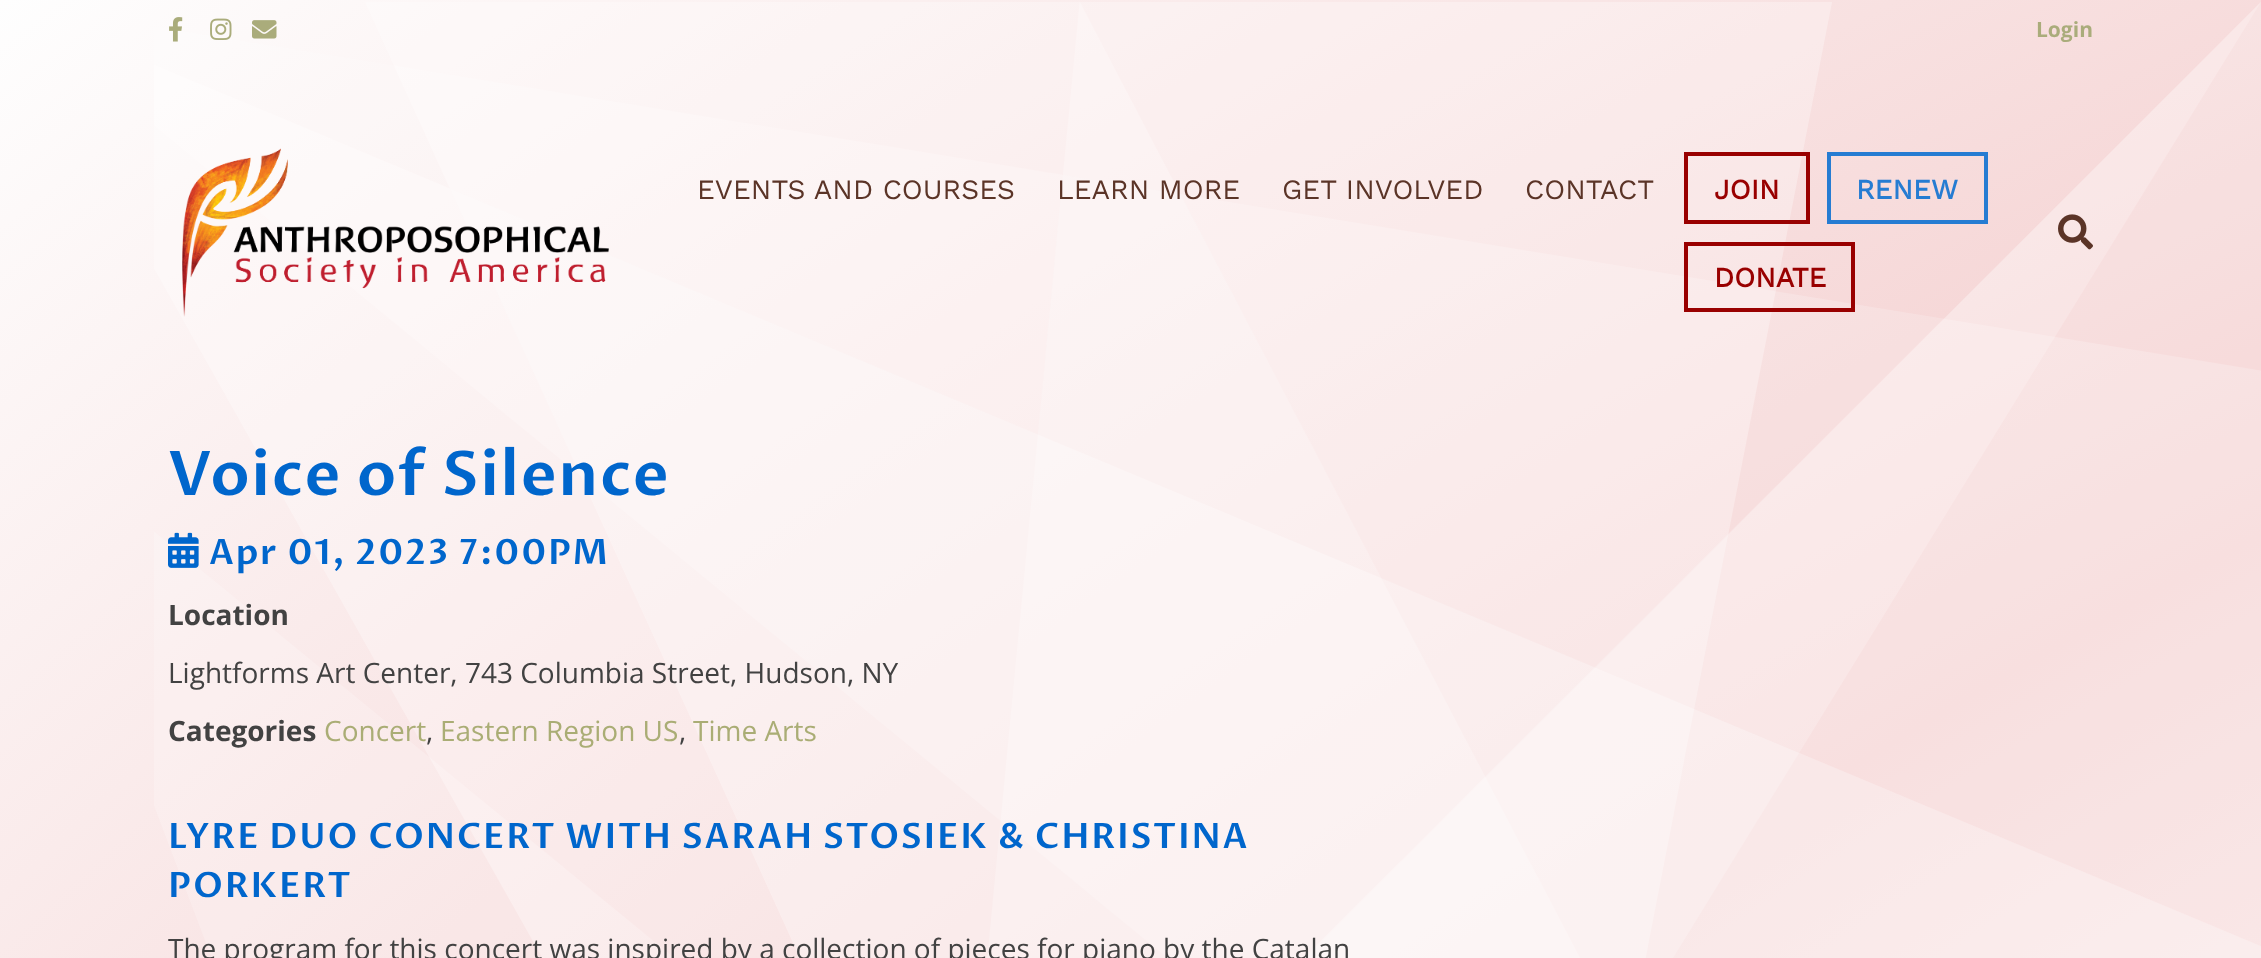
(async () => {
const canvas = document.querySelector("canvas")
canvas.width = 2261
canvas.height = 958
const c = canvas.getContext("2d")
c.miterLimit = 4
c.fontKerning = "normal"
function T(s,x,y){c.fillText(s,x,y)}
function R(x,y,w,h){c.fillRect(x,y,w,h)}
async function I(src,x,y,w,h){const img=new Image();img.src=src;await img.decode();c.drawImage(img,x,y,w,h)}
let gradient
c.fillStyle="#fff"
R(0,0,2261,958)
gradient = c.createRadialGradient(5653,5652,0,5653,5652,7994)
gradient.addColorStop(0,"#fefefe")
gradient.addColorStop(.25,"#ffe7c0")
gradient.addColorStop(.5,"#fefefe")
gradient.addColorStop(.75,"#f4cece")
gradient.addColorStop(1,"#fefefe")
c.fillStyle = gradient
c.beginPath()
c.rect(0,0,2261,958)
c.save()
c.clip()
c.scale(1,6045 / 7994)
c.fillRect(0,0,2261,1267)
c.restore()
await I("1.png",154,2,2107,956)
await I("2.png",169,17,14,25)
await I("3.png",210,18,22,22)
await I("4.png",252,20,25,19)
c.font="bold 21px Open Sans"
c.fillStyle="#aaac7b"
T("Login",2036,37)
await I("5.png",182,148,427,169)
c.font="28px Work Sans"
c.fillStyle="#5b3427"
T("EVENTS AND COURSES",697,199)
T("LEARN MORE",1057,199)
T("GET INVOLVED",1282,199)
T("CONTACT",1525,199)
c.strokeStyle="#900"
c.lineWidth=4
c.strokeRect(1686,154,122,68)
c.font="bold 28px Work Sans"
c.fillStyle="#900"
T("JOIN",1714,199)
c.strokeStyle="#267cd2"
c.strokeRect(1829,154,157,68)
c.fillStyle="#267cd2"
T("RENEW",1856,199)
c.strokeStyle="#900"
c.strokeRect(1686,244,167,66)
c.fillStyle="#900"
T("DONATE",1714,287)
await I("6.png",2058,214,35,36)
c.letterSpacing="1.75px"
c.font="600 61.5px Proza Libre"
c.fillStyle="#06c"
T("Voice of Silence",168,495)
await I("7.png",168,532,31,36)
c.font="600 35px Proza Libre"
T("Apr 01, 2023 7:00PM",209,564)
c.letterSpacing="0px"
c.font="bold 28px Open Sans"
c.fillStyle="#424242"
T("Location",168,625)
c.font="28px Open Sans"
T("Lightforms Art Center, 743 Columbia Street, Hudson, NY",168,683)
c.font="bold 28px Open Sans"
T("Categories",168,741)
c.font="28px Open Sans"
c.fillStyle="#aaad75"
T("Concert",324,741)
c.fillStyle="#424242"
T(",",426,741)
c.fillStyle="#aaad75"
T("Eastern Region US",440,741)
c.fillStyle="#424242"
T(",",679,741)
c.fillStyle="#aaad75"
T("Time Arts",693,741)
c.letterSpacing="1.75px"
c.font="600 35px Proza Libre"
c.fillStyle="#06c"
T("LYRE DUO CONCERT WITH SARAH STOSIEK & CHRISTINA",168,848)
T("PORKERT",168,897)
c.letterSpacing="0px"
c.font="28px Open Sans"
c.fillStyle="#424242"
T("The program for this concert was inspired by a collection of pieces for piano by the Catalan",168,959)
})()
